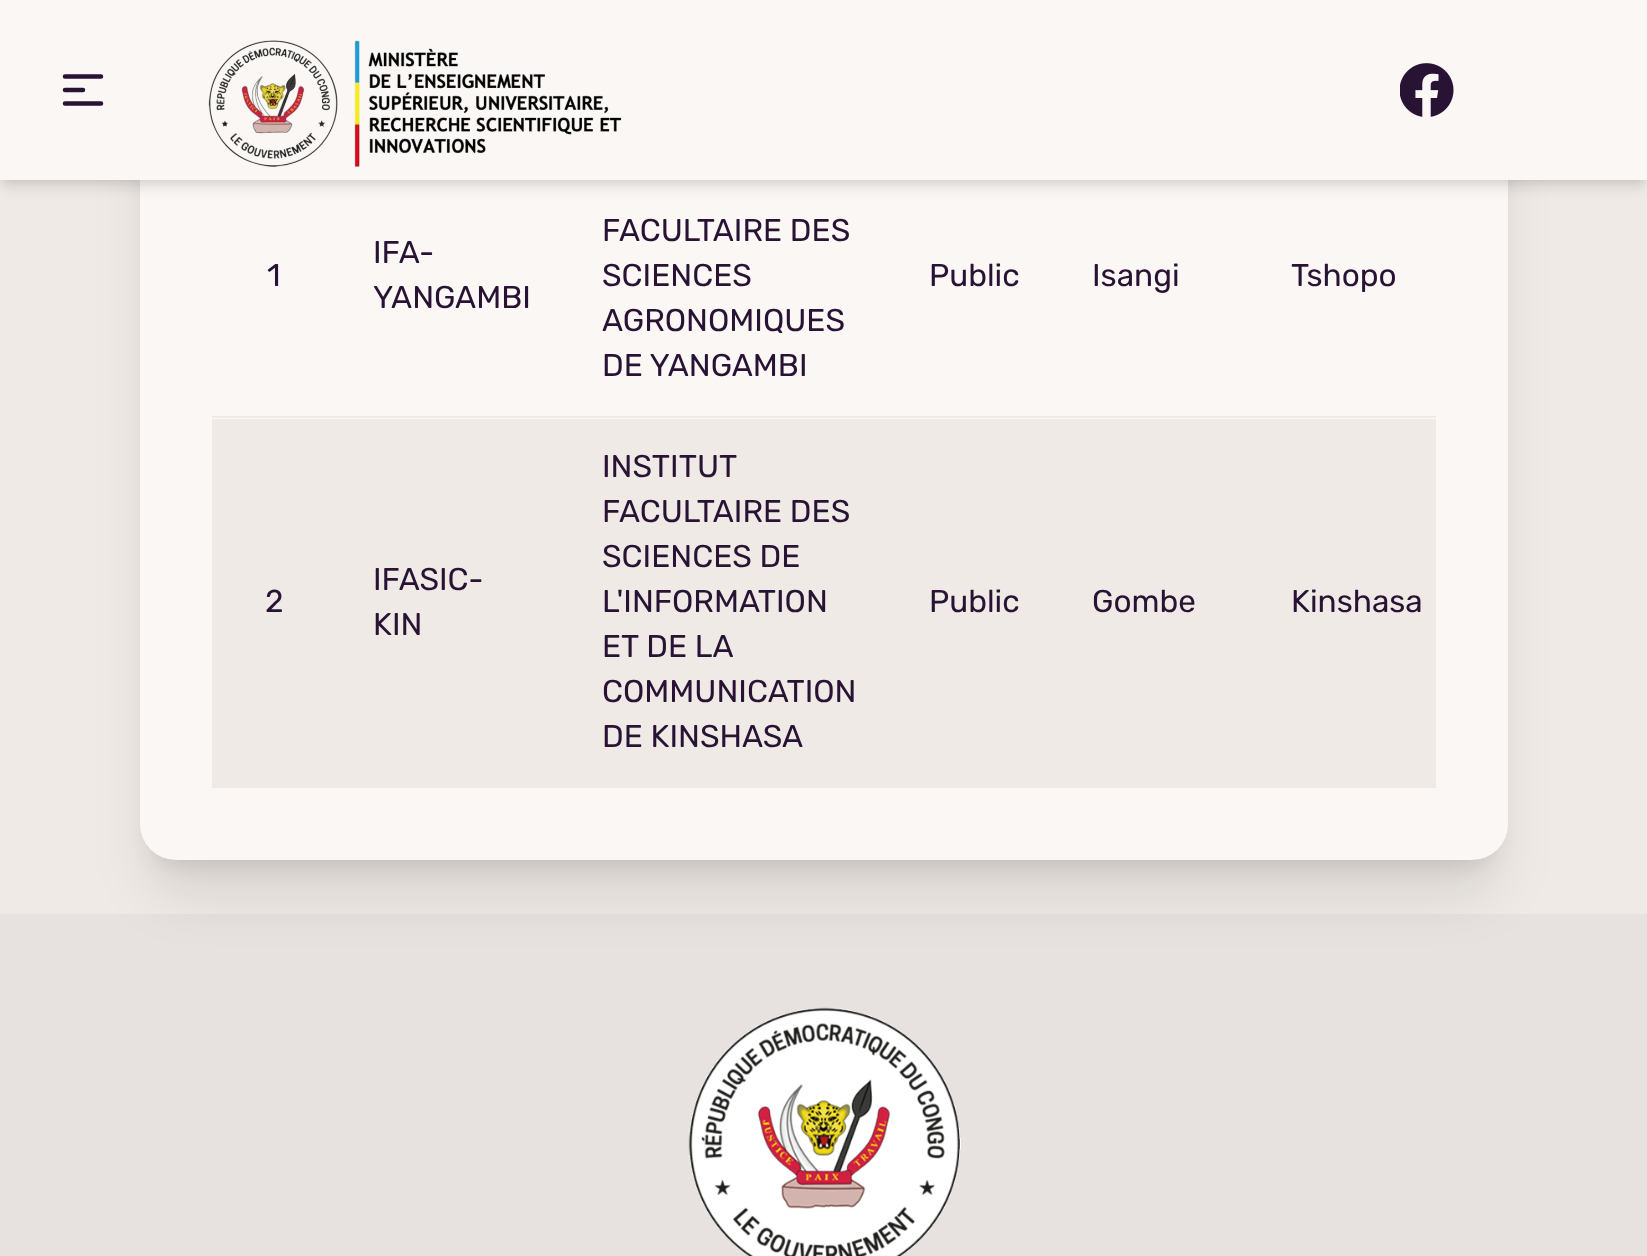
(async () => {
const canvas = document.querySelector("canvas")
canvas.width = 1647
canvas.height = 1256
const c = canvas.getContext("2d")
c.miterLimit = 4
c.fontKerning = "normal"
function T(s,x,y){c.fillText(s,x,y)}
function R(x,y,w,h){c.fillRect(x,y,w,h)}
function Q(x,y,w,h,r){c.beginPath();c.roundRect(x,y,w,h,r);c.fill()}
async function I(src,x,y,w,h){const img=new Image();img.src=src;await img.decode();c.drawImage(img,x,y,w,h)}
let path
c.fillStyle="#efeae6"
R(0,0,1647,1256)
c.fillStyle="#0000001a"
c.filter="blur(11px)"
c.beginPath()
c.roundRect(153,-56,1341,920,23)
c.fill()
c.filter="none"
c.fillStyle="#e7e2df"
R(0,914,1647,342)
c.fillStyle="#0000001a"
c.filter="blur(28px)"
c.beginPath()
c.roundRect(151,-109,1345,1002,25)
c.fill()
c.filter="none"
c.fillStyle="#faf7f5"
Q(140,-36,1368,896,36)
c.fillStyle="#0000000f"
c.filter="blur(4.5px)"
c.beginPath()
c.rect(2,7,1643,175)
c.fill()
c.filter="none"
c.fillStyle="#0000001a"
c.filter="blur(7px)"
c.beginPath()
c.rect(2,11,1643,176)
c.fill()
c.filter="none"
c.fillStyle="#faf7f5"
R(0,0,1647,180)
path = new Path2D("M65 76.5h36m-36 13.5h18m-18 13.5h36")
c.strokeStyle="#291334"
c.lineWidth=4.5
c.lineCap="round"
c.lineJoin="round"
c.stroke(path)
await I("1.png",208,40,414,127)
await I("2.png",1400,63,54,54)
c.fillStyle="#efeae6"
R(212,416,1224,2)
c.font="31.5px Rubik"
c.fillStyle="#291334"
T("1",267,286)
T("IFA-",373,263)
T("YANGAMBI",373,308)
T("FACULTAIRE DES",602,241)
T("SCIENCES",602,286)
T("AGRONOMIQUES",602,331)
T("DE YANGAMBI",602,376)
T("Public",929,286)
T("Isangi",1092,286)
T("Tshopo",1291,286)
c.fillStyle="#efeae6"
R(212,419,1224,369)
c.fillStyle="#291334"
T("2",265,612)
T("IFASIC-",373,590)
T("KIN",373,635)
T("INSTITUT",602,477)
T("FACULTAIRE DES",602,522)
T("SCIENCES DE",602,567)
T("L'INFORMATION",602,612)
T("ET DE LA",602,657)
T("COMMUNICATION",602,702)
T("DE KINSHASA",602,747)
T("Public",929,612)
T("Gombe",1092,612)
T("Kinshasa",1291,612)
await I("3.png",688,1007,273,249)
})()
